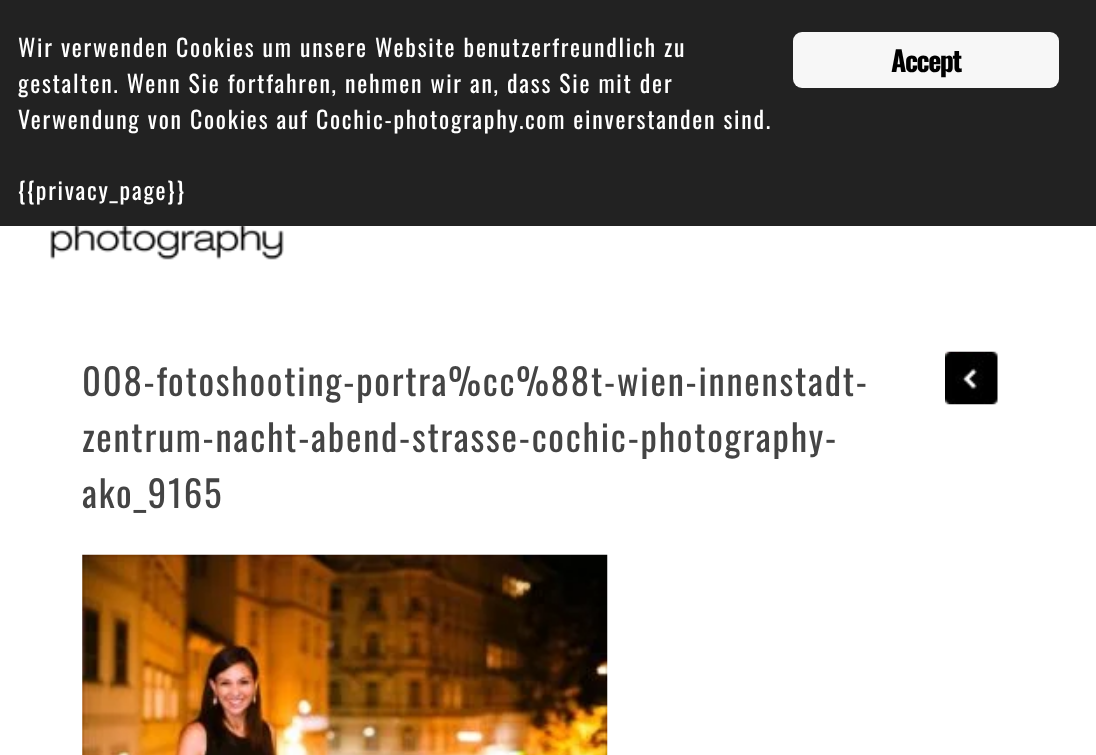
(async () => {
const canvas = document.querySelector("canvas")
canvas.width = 1096
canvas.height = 755
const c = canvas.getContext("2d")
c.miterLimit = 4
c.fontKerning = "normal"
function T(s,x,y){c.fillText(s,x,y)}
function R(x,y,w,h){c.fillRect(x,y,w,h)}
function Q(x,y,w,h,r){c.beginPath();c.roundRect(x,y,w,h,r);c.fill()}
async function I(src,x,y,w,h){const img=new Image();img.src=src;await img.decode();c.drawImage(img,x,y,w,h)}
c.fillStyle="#fff"
R(0,0,1096,755)
c.fillStyle="#222"
R(0,0,1096,226)
c.letterSpacing="1.75px"
c.font="23.8px Oswald"
c.fillStyle="#fff"
T("Wir verwenden Cookies um unsere Website benutzerfreundlich zu",18,57)
T("gestalten. Wenn Sie fortfahren, nehmen wir an, dass Sie mit der",18,93)
T("Verwendung von Cookies auf Cochic-photography.com einverstanden sind.",18,129)
T("{{privacy_page}}",18,200)
c.fillStyle="#f7f7f7"
Q(793,32,266,56,9)
c.letterSpacing="-1.5px"
c.font="bold 28px Oswald"
c.fillStyle="#000"
T("Accept",891,72)
await I("1.png",50,226,234,34)
c.letterSpacing="1.75px"
c.font="36.75px Oswald"
c.fillStyle="#444"
T("008-fotoshooting-portra%cc%88t-wien-innenstadt-",82,396)
T("zentrum-nacht-abend-strasse-cochic-photography-",82,452)
T("ako_9165",82,508)
await I("2.png",945,351,53,54)
await I("3.png",82,554,526,201)
})()
